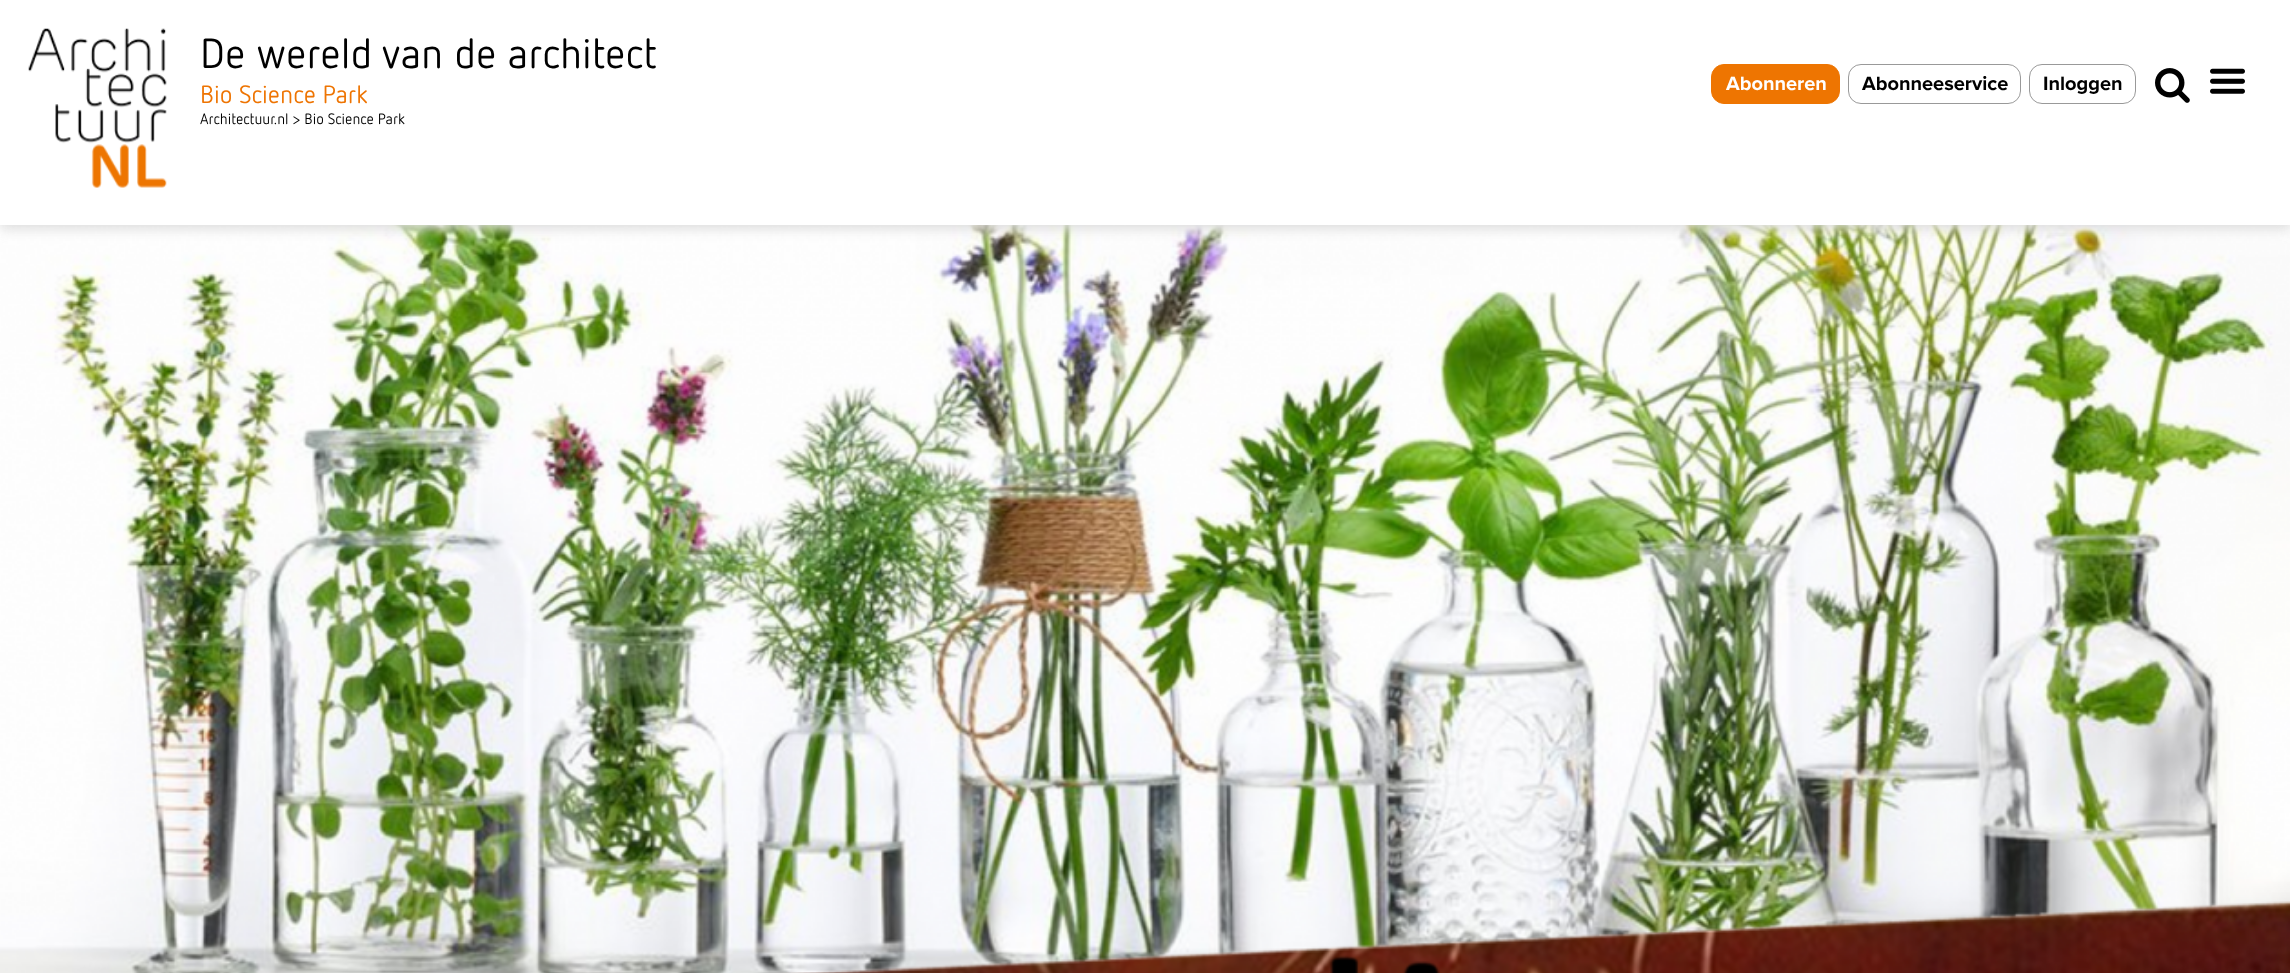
(async () => {
const canvas = document.querySelector("canvas")
canvas.width = 2290
canvas.height = 973
const c = canvas.getContext("2d")
c.miterLimit = 4
c.fontKerning = "normal"
function T(s,x,y){c.fillText(s,x,y)}
function R(x,y,w,h){c.fillRect(x,y,w,h)}
async function I(src,x,y,w,h){const img=new Image();img.src=src;await img.decode();c.drawImage(img,x,y,w,h)}
c.fillStyle="#fff"
R(0,0,2290,973)
await I("4.png",0,225,2290,748)
c.fillStyle="#ddd"
c.filter="blur(6px)"
c.beginPath()
c.rect(0,4,2290,225)
c.fill()
c.filter="none"
c.fillStyle="#fff"
R(0,0,2290,225)
c.font="42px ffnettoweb"
c.fillStyle="#000"
T("De wereld van de architect",200,68)
c.font="25px ffnettoweb"
c.fillStyle="#ee7402"
T("Bio Science Park",200,103)
c.font="15px ffnettoweb"
c.fillStyle="#000"
T("Architectuur.nl > Bio Science Park",200,124)
await I("1.png",28,28,139,160)
c.fillStyle="#ee7501"
c.beginPath()
c.roundRect(1711.5,64.5,128,39,12.5)
c.fill()
c.strokeStyle="#ee7501"
c.stroke()
c.font="bold 20px Proxima Nova"
c.fillStyle="#fff"
T("Abonneren",1726,90)
c.beginPath()
c.roundRect(1848.5,64.5,172,39,12.5)
c.strokeStyle="#999"
c.stroke()
c.fillStyle="#000"
T("Abonneeservice",1862,90)
c.beginPath()
c.roundRect(2029.5,64.5,106,39,12.5)
c.stroke()
T("Inloggen",2043,90)
await I("2.png",2155,68,35,35)
await I("3.png",2210,68,35,26)
})()
